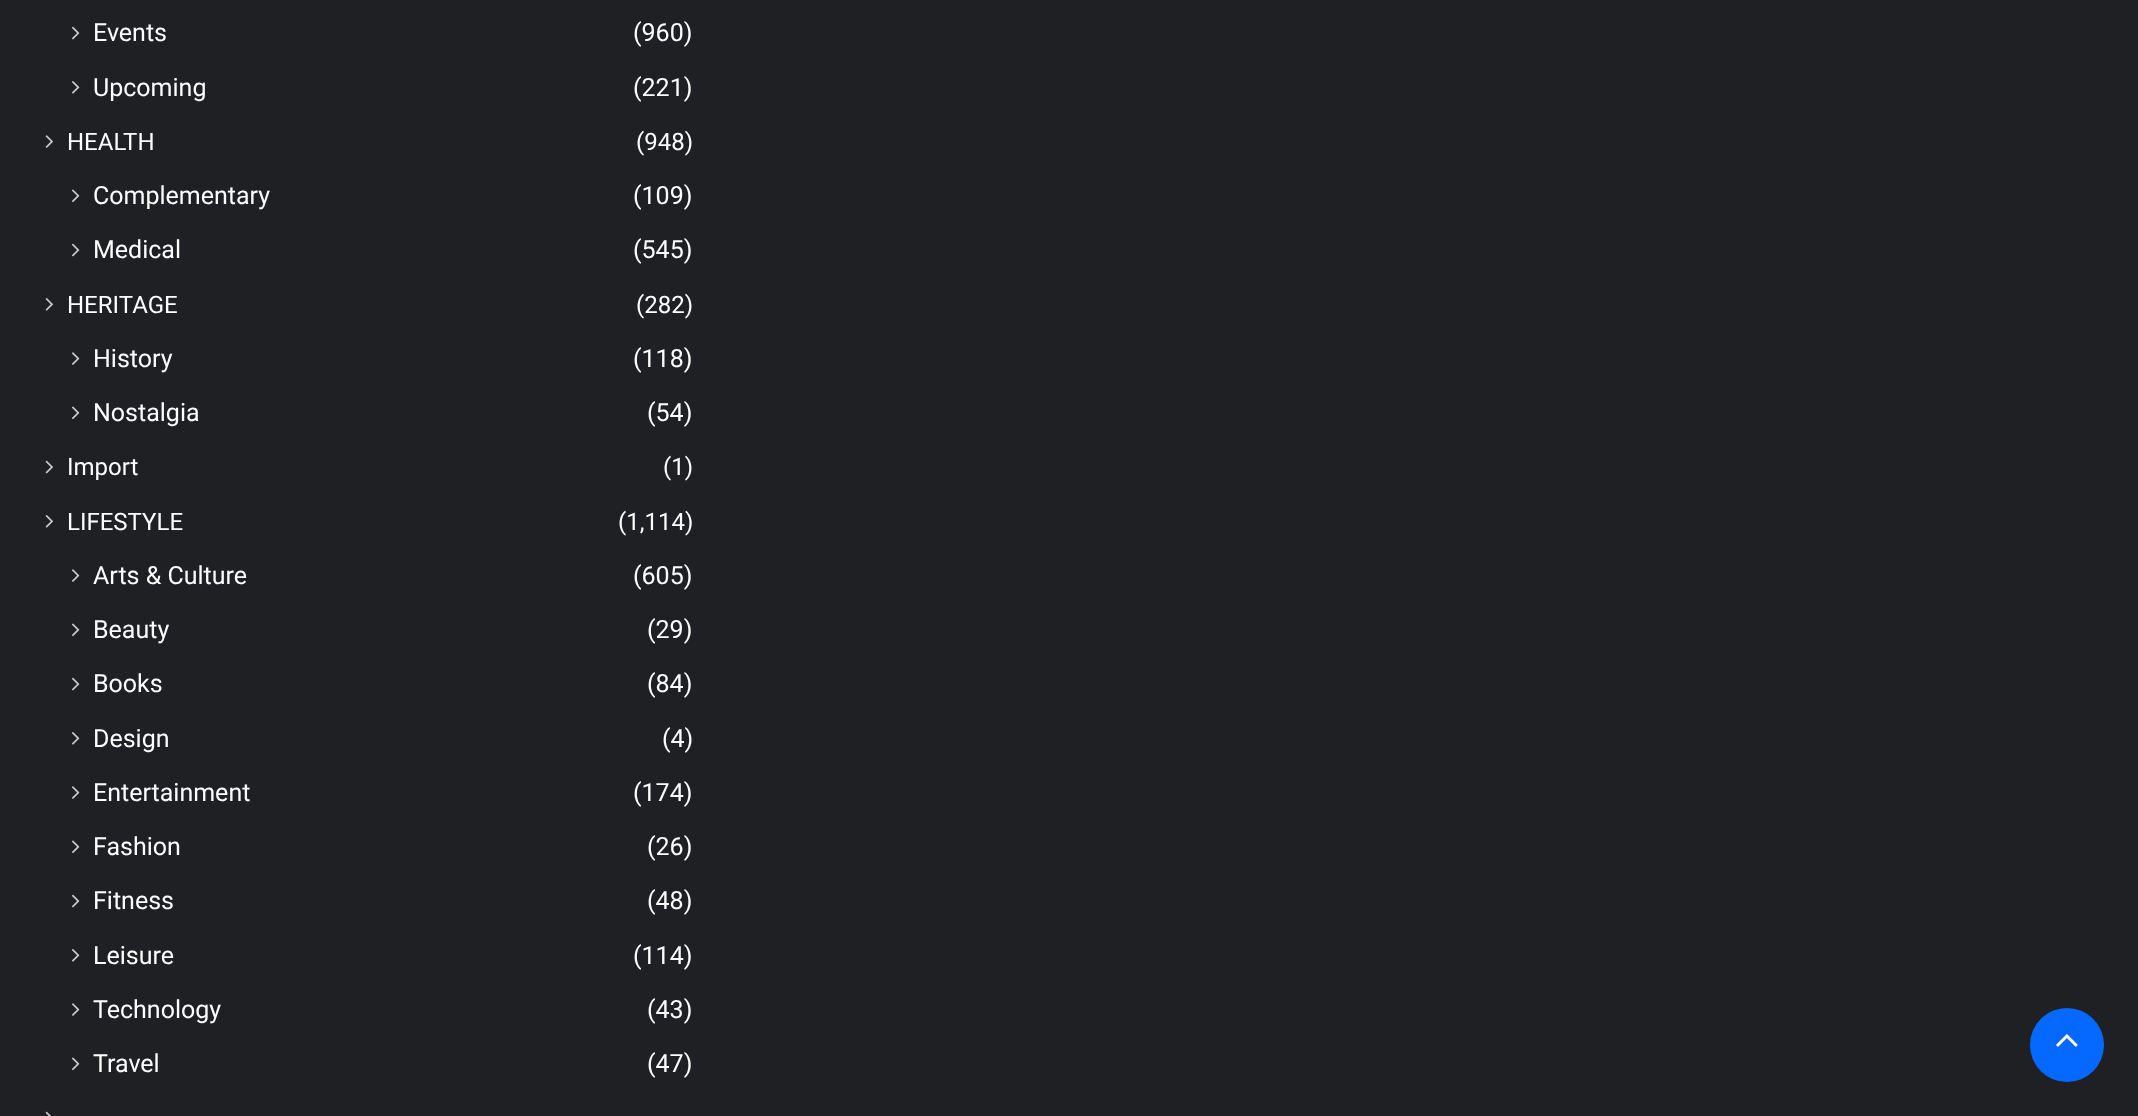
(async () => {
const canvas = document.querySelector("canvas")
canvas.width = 2138
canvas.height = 1116
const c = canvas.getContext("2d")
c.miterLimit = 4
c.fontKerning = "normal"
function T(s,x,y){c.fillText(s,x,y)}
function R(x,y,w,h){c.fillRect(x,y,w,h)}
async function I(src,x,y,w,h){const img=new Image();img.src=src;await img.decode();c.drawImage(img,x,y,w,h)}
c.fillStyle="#1f2024"
R(0,0,2138,1116)
await I("1.png",71,26,9,14)
c.font="25px Roboto"
c.fillStyle="#fdfdfd"
T("Events",93,41)
T("(960)",633,41)
await I("2.png",71,81,9,13)
T("Upcoming",93,96)
T("(221)",633,96)
await I("3.png",45,135,8,13)
c.font="24px Roboto"
T("HEALTH",67,150)
T("(948)",636,150)
await I("4.png",71,189,9,14)
c.font="25px Roboto"
T("Complementary",93,204)
T("(109)",633,204)
await I("1.png",71,243,9,14)
T("Medical",93,258)
T("(545)",633,258)
await I("5.png",45,298,8,13)
c.font="24px Roboto"
T("HERITAGE",67,313)
T("(282)",636,313)
await I("6.png",71,352,9,13)
c.font="25px Roboto"
T("History",93,367)
T("(118)",633,367)
await I("4.png",71,406,9,14)
T("Nostalgia",93,421)
T("(54)",647,421)
await I("7.png",45,460,8,14)
c.font="24px Roboto"
T("Import",67,475)
T("(1)",663,475)
await I("5.png",45,515,8,13)
T("LIFESTYLE",67,530)
T("(1,114)",618,530)
await I("6.png",71,569,9,13)
c.font="25px Roboto"
T("Arts & Culture",93,584)
T("(605)",633,584)
await I("4.png",71,623,9,14)
T("Beauty",93,638)
T("(29)",647,638)
await I("1.png",71,677,9,14)
T("Books",93,692)
T("(84)",647,692)
await I("2.png",71,732,9,13)
T("Design",93,747)
T("(4)",662,747)
await I("6.png",71,786,9,13)
T("Entertainment",93,801)
T("(174)",633,801)
await I("4.png",71,840,9,14)
T("Fashion",93,855)
T("(26)",647,855)
await I("1.png",71,894,9,14)
T("Fitness",93,909)
T("(48)",647,909)
await I("2.png",71,949,9,13)
T("Leisure",93,964)
T("(114)",633,964)
await I("6.png",71,1003,9,13)
T("Technology",93,1018)
T("(43)",647,1018)
await I("4.png",71,1057,9,14)
T("Travel",93,1072)
T("(47)",647,1072)
await I("8.png",45,1111,6,5)
c.fillStyle="#0669ff"
c.beginPath()
c.arc(2067,1045,37,0,7)
c.fill()
await I("9.png",2056,1034,22,13)
})()
